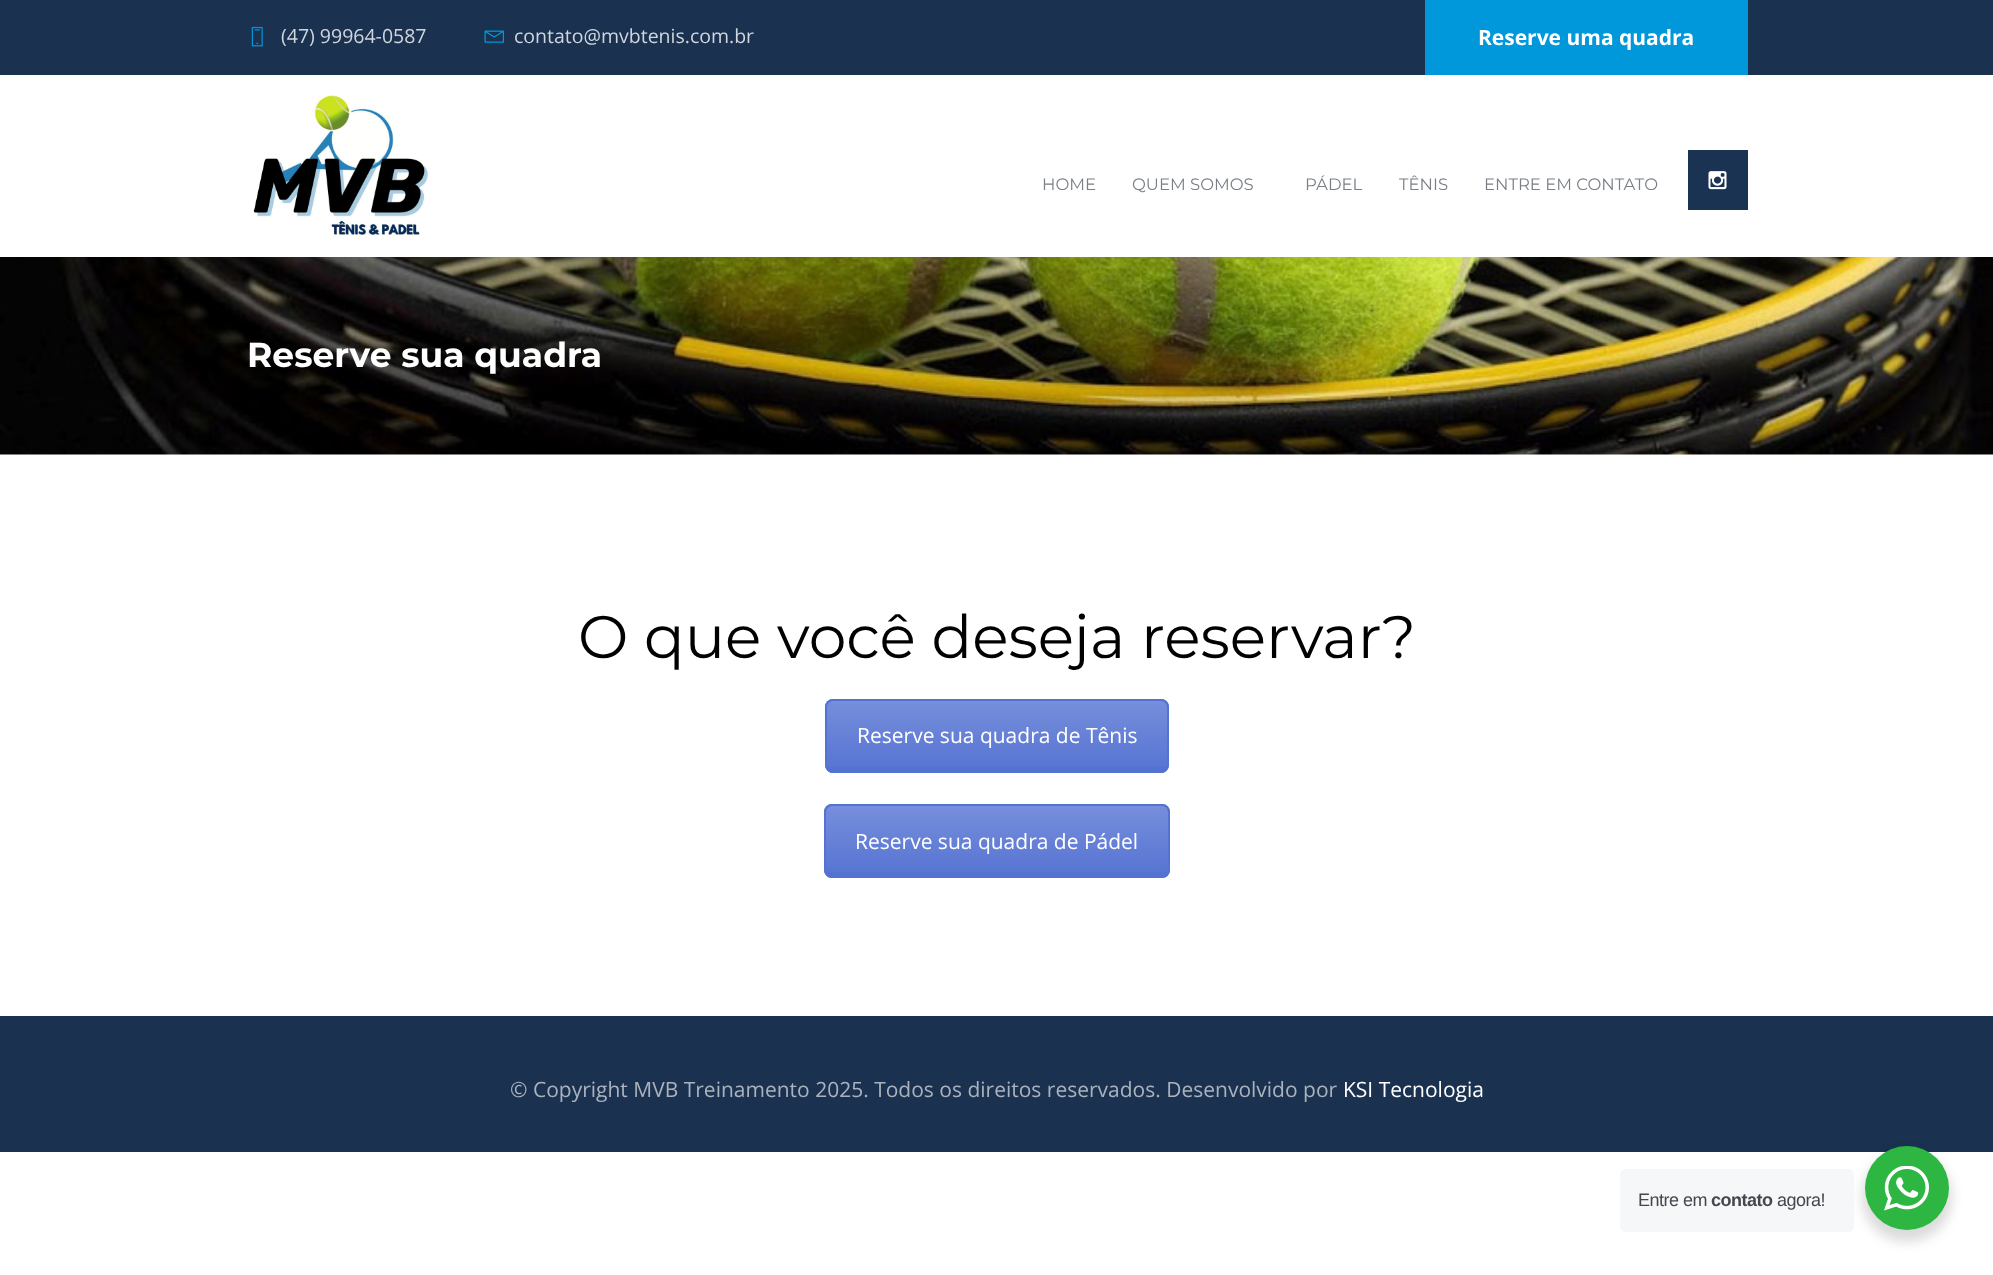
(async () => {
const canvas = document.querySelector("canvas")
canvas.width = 1993
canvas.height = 1275
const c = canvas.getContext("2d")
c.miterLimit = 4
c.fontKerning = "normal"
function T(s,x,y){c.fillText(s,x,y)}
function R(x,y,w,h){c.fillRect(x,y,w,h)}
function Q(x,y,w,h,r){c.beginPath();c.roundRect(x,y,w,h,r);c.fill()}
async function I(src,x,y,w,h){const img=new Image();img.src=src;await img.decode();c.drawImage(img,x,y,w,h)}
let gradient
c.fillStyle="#fff"
R(0,0,1993,1275)
c.fillStyle="#1a3150"
R(0,0,1993,75)
await I("1.png",251,26,12,21)
c.font="19.5px Open Sans"
c.fillStyle="#d0d6de"
T("(47) 99964-0587",281,43)
await I("2.png",484,30,20,13)
T("contato@mvbtenis.com.br",514,43)
c.fillStyle="#0098da"
R(1425,0,323,75)
c.font="bold 21px Open Sans"
c.fillStyle="#fff"
T("Reserve uma quadra",1478,45)
await I("3.png",253,95,175,140)
c.font="16.5px Montserrat"
c.fillStyle="#7a7f87"
T("HOME",1042,190)
T("QUEM SOMOS",1132,190)
T("PÁDEL",1305,190)
T("TÊNIS",1399,190)
T("ENTRE EM CONTATO",1484,190)
c.fillStyle="#1b3353"
R(1688,150,60,60)
await I("4.png",1708,171,19,19)
await I("5.png",0,257,1993,198)
c.font="bold 34.5px Montserrat"
c.fillStyle="#fff"
T("Reserve sua quadra",247,367)
c.font="60px Montserrat"
c.fillStyle="#000"
T("O que você deseja reservar?",578,658)
c.fillStyle="#5472d2"
Q(825,699,344,74,8)
c.save()
c.beginPath()
c.roundRect(825,699,344,74,8)
c.clip()
gradient = c.createLinearGradient(997,701,997,771)
gradient.addColorStop(0,"#ffffff33")
gradient.addColorStop(1,"#ffffff03")
c.fillStyle = gradient
R(825,701,344,66)
c.restore()
c.beginPath()
c.roundRect(826,700,342,72,7)
c.strokeStyle="#5472d2"
c.lineWidth=2
c.stroke()
c.font="21px Open Sans"
c.fillStyle="#fff"
T("Reserve sua quadra de Tênis",857,743)
c.fillStyle="#5472d2"
Q(824,804,346,74,8)
c.save()
c.beginPath()
c.roundRect(824,804,346,74,8)
c.clip()
gradient = c.createLinearGradient(997,806,997,876)
gradient.addColorStop(0,"#ffffff33")
gradient.addColorStop(1,"#ffffff03")
c.fillStyle = gradient
R(824,806,346,66)
c.restore()
c.beginPath()
c.roundRect(825,805,344,72,7)
c.stroke()
c.fillStyle="#fff"
T("Reserve sua quadra de Pádel",855,849)
c.fillStyle="#1a3150"
R(0,1016,1993,136)
c.fillStyle="#aab2bd"
T("© Copyright MVB Treinamento 2025. Todos os direitos reservados. Desenvolvido por",510,1097)
c.fillStyle="#fff"
T("KSI Tecnologia",1343,1097)
c.fillStyle="#00000024"
c.filter="blur(6px)"
c.beginPath()
c.roundRect(1862,1152,90,90,45)
c.fill()
c.filter="none"
c.fillStyle="#f5f7f9"
Q(1620,1169,234,63,6)
c.letterSpacing="-0.5px"
c.font="18px Liberation Sans"
c.fillStyle="#43474e"
T("Entre em",1638,1206)
c.font="bold 18px Liberation Sans"
T("contato",1711,1206)
c.font="18px Liberation Sans"
T("agora!",1777,1206)
c.fillStyle="#2db742"
c.beginPath()
c.arc(1907,1188,42,0,7)
c.fill()
await I("6.png",1884,1166,45,45)
})()
